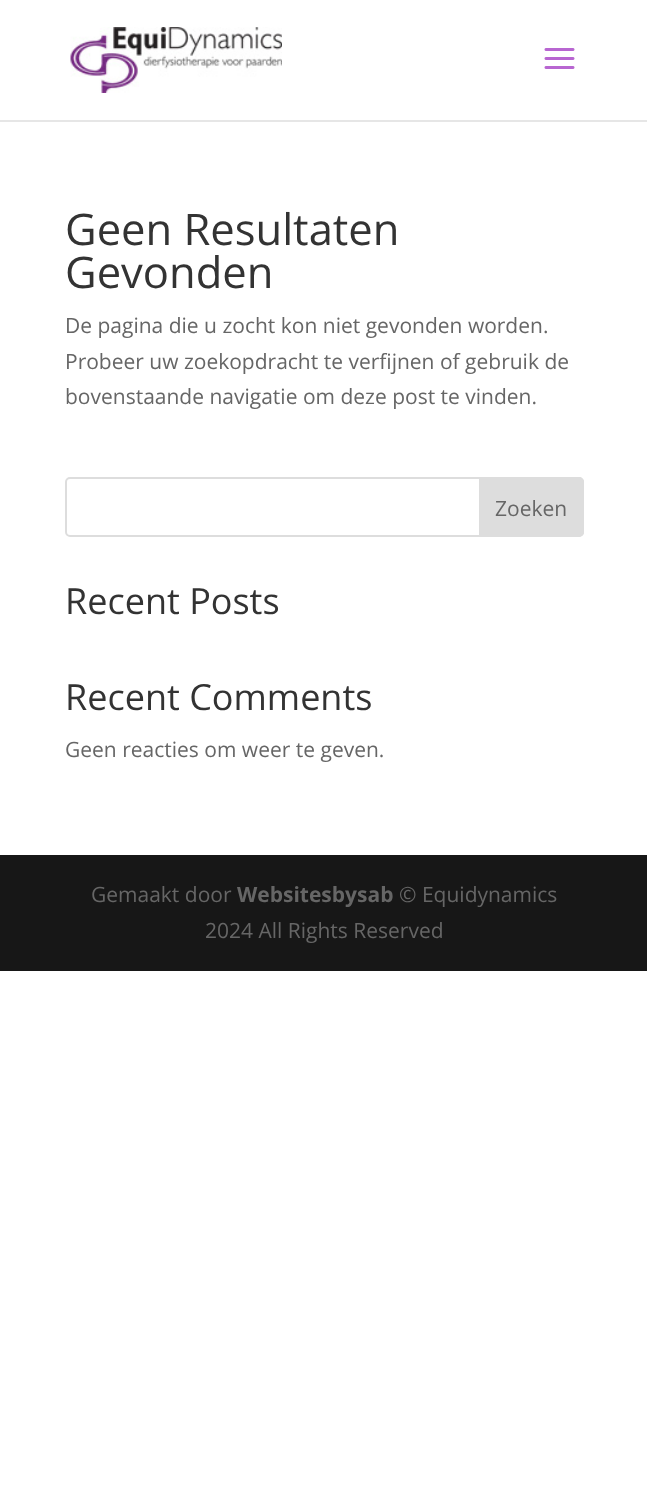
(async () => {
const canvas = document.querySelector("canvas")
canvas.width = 647
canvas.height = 1505
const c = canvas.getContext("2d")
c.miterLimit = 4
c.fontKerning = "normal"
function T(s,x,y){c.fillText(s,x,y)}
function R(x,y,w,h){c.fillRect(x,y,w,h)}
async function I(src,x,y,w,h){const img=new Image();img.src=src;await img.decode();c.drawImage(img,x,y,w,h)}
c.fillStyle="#fff"
R(0,0,647,1505)
c.fillStyle="#e6e6e6"
R(0,120,647,2)
await I("1.png",70,27,212,66)
await I("2.png",544,48,31,21)
c.font="43.5px Open Sans"
c.fillStyle="#333"
T("Geen Resultaten",65,245)
T("Gevonden",65,288)
c.font="21px Open Sans"
c.fillStyle="#666"
T("De pagina die u zocht kon niet gevonden worden.",65,333)
T("Probeer uw zoekopdracht te verfijnen of gebruik de",65,369)
T("bovenstaande navigatie om deze post te vinden.",65,404)
c.beginPath()
c.roundRect(66,478,517,58,4)
c.strokeStyle="#ddd"
c.lineWidth=2
c.stroke()
c.fillStyle="#ddd"
c.beginPath()
c.roundRect(480,478,103,58,[0,4,4,0])
c.fill()
c.stroke()
c.fillStyle="#666"
T("Zoeken",495,516)
c.font="36px Open Sans"
c.fillStyle="#333"
T("Recent Posts",65,614)
T("Recent Comments",65,710)
c.font="21px Open Sans"
c.fillStyle="#666"
T("Geen reacties om weer te geven.",65,757)
c.fillStyle="#171717"
R(0,855,647,116)
c.fillStyle="#666"
T("Gemaakt door",91,902)
c.font="bold 21px Open Sans"
T("Websitesbysab",237,902)
c.font="21px Open Sans"
T("© Equidynamics",399,902)
T("2024 All Rights Reserved",205,938)
})()
